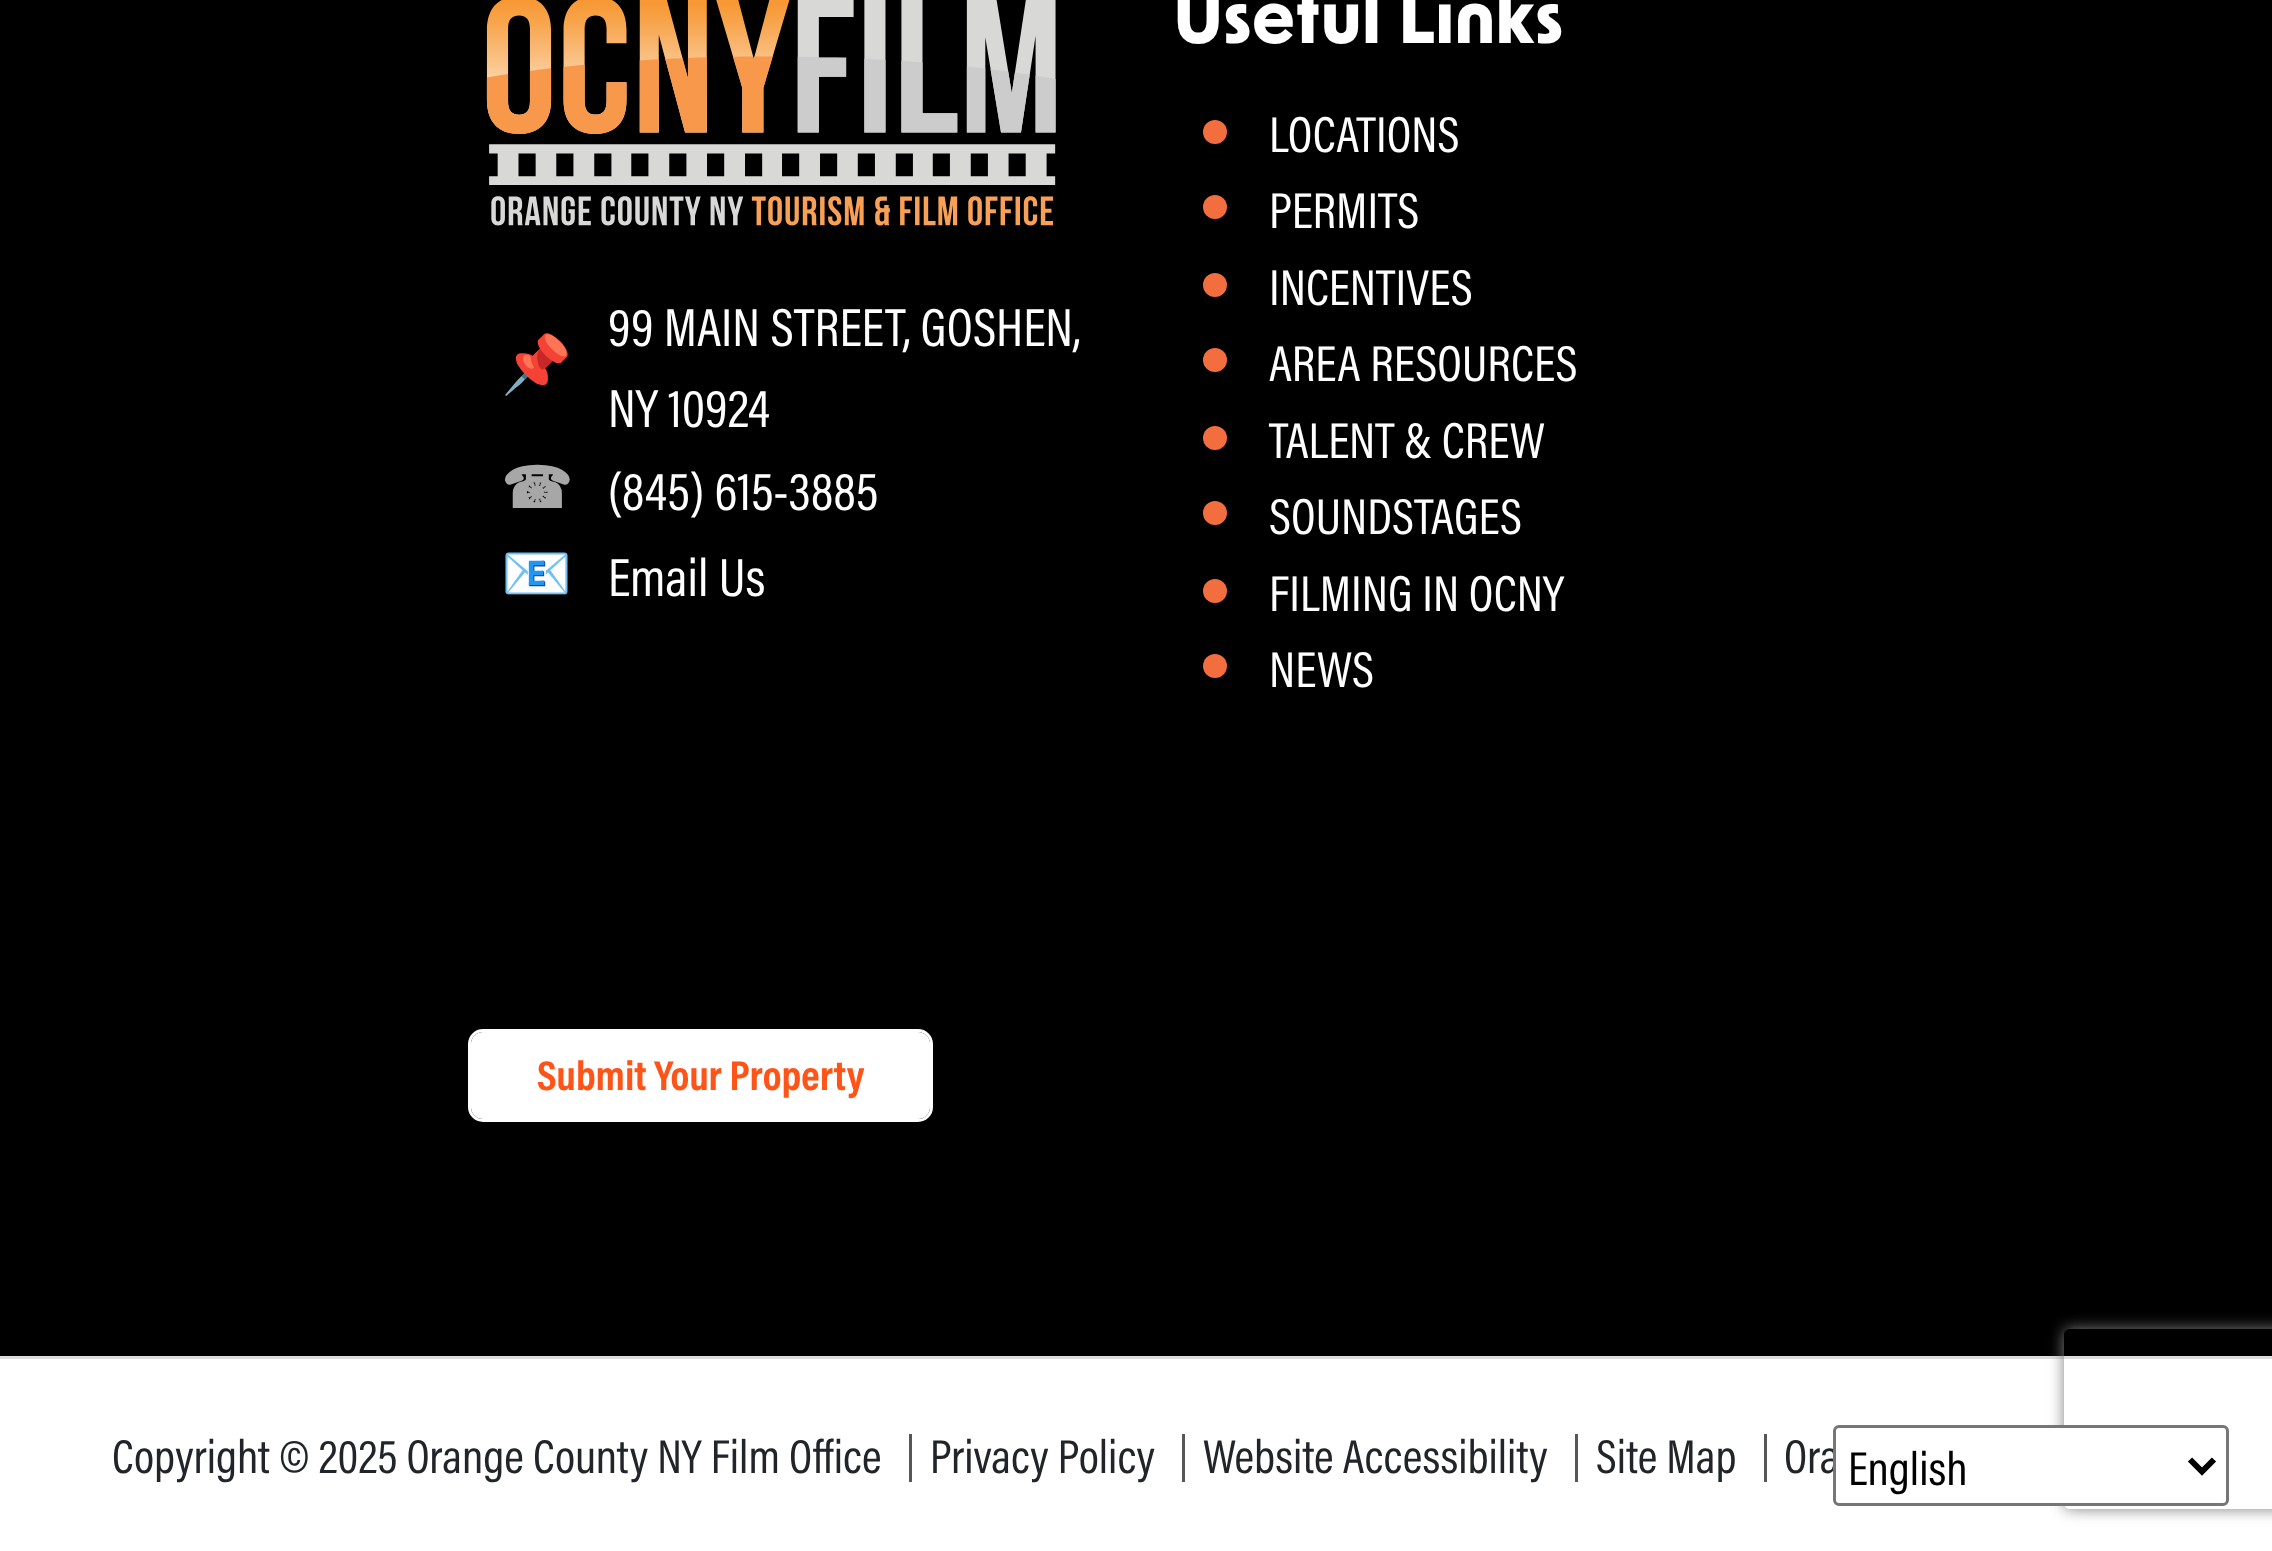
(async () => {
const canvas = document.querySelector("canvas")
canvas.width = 2272
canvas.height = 1551
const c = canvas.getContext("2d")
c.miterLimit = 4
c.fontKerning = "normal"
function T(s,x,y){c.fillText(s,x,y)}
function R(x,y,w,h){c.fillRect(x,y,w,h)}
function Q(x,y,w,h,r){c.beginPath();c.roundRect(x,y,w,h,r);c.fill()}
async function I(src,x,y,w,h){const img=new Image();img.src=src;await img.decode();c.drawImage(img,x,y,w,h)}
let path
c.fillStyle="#fff"
R(0,0,2272,1551)
c.fillStyle="#000"
R(0,0,2272,1356)
await I("1.png",486,0,570,226)
c.font="bold 57px Noto Color Emoji"
c.fillStyle="#a7a7a7"
T("📌",501,384)
c.font="54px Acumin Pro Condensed"
c.fillStyle="#fff"
T("99 MAIN STREET, GOSHEN,",608,346)
T("NY 10924",608,427)
c.font="bold 57px DejaVu Sans"
c.fillStyle="#a7a7a7"
T("☎",501,508)
c.font="54px Acumin Pro Condensed"
c.fillStyle="#fff"
T("(845) 615-3885",608,510)
c.font="bold 57px Noto Color Emoji"
c.fillStyle="#a7a7a7"
T("📧",501,593)
c.font="54px Acumin Pro Condensed"
c.fillStyle="#fff"
T("Email Us",608,596)
c.font="bold 72.75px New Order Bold"
T("Useful Links",1173,43)
c.fillStyle="#f36e3e"
c.beginPath()
c.arc(1215,132,12,0,7)
c.fill()
c.font="51px Acumin Pro Condensed"
c.fillStyle="#fff"
T("LOCATIONS",1269,152)
c.fillStyle="#f36e3e"
c.beginPath()
c.arc(1215,207,12,0,7)
c.fill()
c.fillStyle="#fff"
T("PERMITS",1269,228)
c.fillStyle="#f36e3e"
c.beginPath()
c.arc(1215,285,12,0,7)
c.fill()
c.fillStyle="#fff"
T("INCENTIVES",1269,305)
c.fillStyle="#f36e3e"
c.beginPath()
c.arc(1215,360,12,0,7)
c.fill()
c.fillStyle="#fff"
T("AREA RESOURCES",1269,381)
c.fillStyle="#f36e3e"
c.beginPath()
c.arc(1215,438,12,0,7)
c.fill()
c.fillStyle="#fff"
T("TALENT & CREW",1269,458)
c.fillStyle="#f36e3e"
c.beginPath()
c.arc(1215,513,12,0,7)
c.fill()
c.fillStyle="#fff"
T("SOUNDSTAGES",1269,534)
c.fillStyle="#f36e3e"
c.beginPath()
c.arc(1215,591,12,0,7)
c.fill()
c.fillStyle="#fff"
T("FILMING IN OCNY",1269,611)
c.fillStyle="#f36e3e"
c.beginPath()
c.arc(1215,666,12,0,7)
c.fill()
c.fillStyle="#fff"
T("NEWS",1269,687)
Q(471,1032,459,87,12)
c.beginPath()
c.roundRect(469.5,1030.5,462,90,13.5)
c.strokeStyle="#fff"
c.lineWidth=3
c.stroke()
c.font="bold 42px Acumin Pro Condensed"
c.fillStyle="#ff5417"
T("Submit Your Property",537,1090)
c.fillStyle="#ddd"
R(0,1356,2272,3)
c.font="48px Acumin Pro Condensed"
c.fillStyle="#212529"
T("Copyright © 2025 Orange County NY Film Office",112,1473)
c.fillStyle="#575757"
R(909,1434,3,48)
c.fillStyle="#212529"
T("Privacy Policy",930,1473)
c.fillStyle="#575757"
R(1182,1434,3,48)
c.fillStyle="#212529"
T("Website Accessibility",1203,1473)
c.fillStyle="#575757"
R(1575,1434,3,48)
c.fillStyle="#212529"
T("Site Map",1596,1473)
c.fillStyle="#575757"
R(1764,1434,3,48)
c.fillStyle="#212529"
T("Ora",1784,1473)
c.save()
path = new Path2D("M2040 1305h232v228h-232zm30 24h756c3.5 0 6 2.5 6 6v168c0 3.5-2.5 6-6 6h-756c-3.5 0-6-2.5-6-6v-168c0-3.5 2.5-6 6-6z")
c.clip(path,"evenodd")
c.fillStyle="#808080"
c.filter="blur(7.5px)"
c.beginPath()
c.roundRect(2064,1329,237,180,6)
c.fill()
c.filter="none"
c.restore()
c.fillStyle="#fff"
c.beginPath()
c.roundRect(1834.5,1426.5,393,78,4.5)
c.fill()
c.strokeStyle="#767676"
c.stroke()
path = new Path2D("M2190 1459.5l12 12l12-12")
c.strokeStyle="#000"
c.lineWidth=6
c.stroke(path)
c.fillStyle="#000"
T("English",1848,1485)
})()
